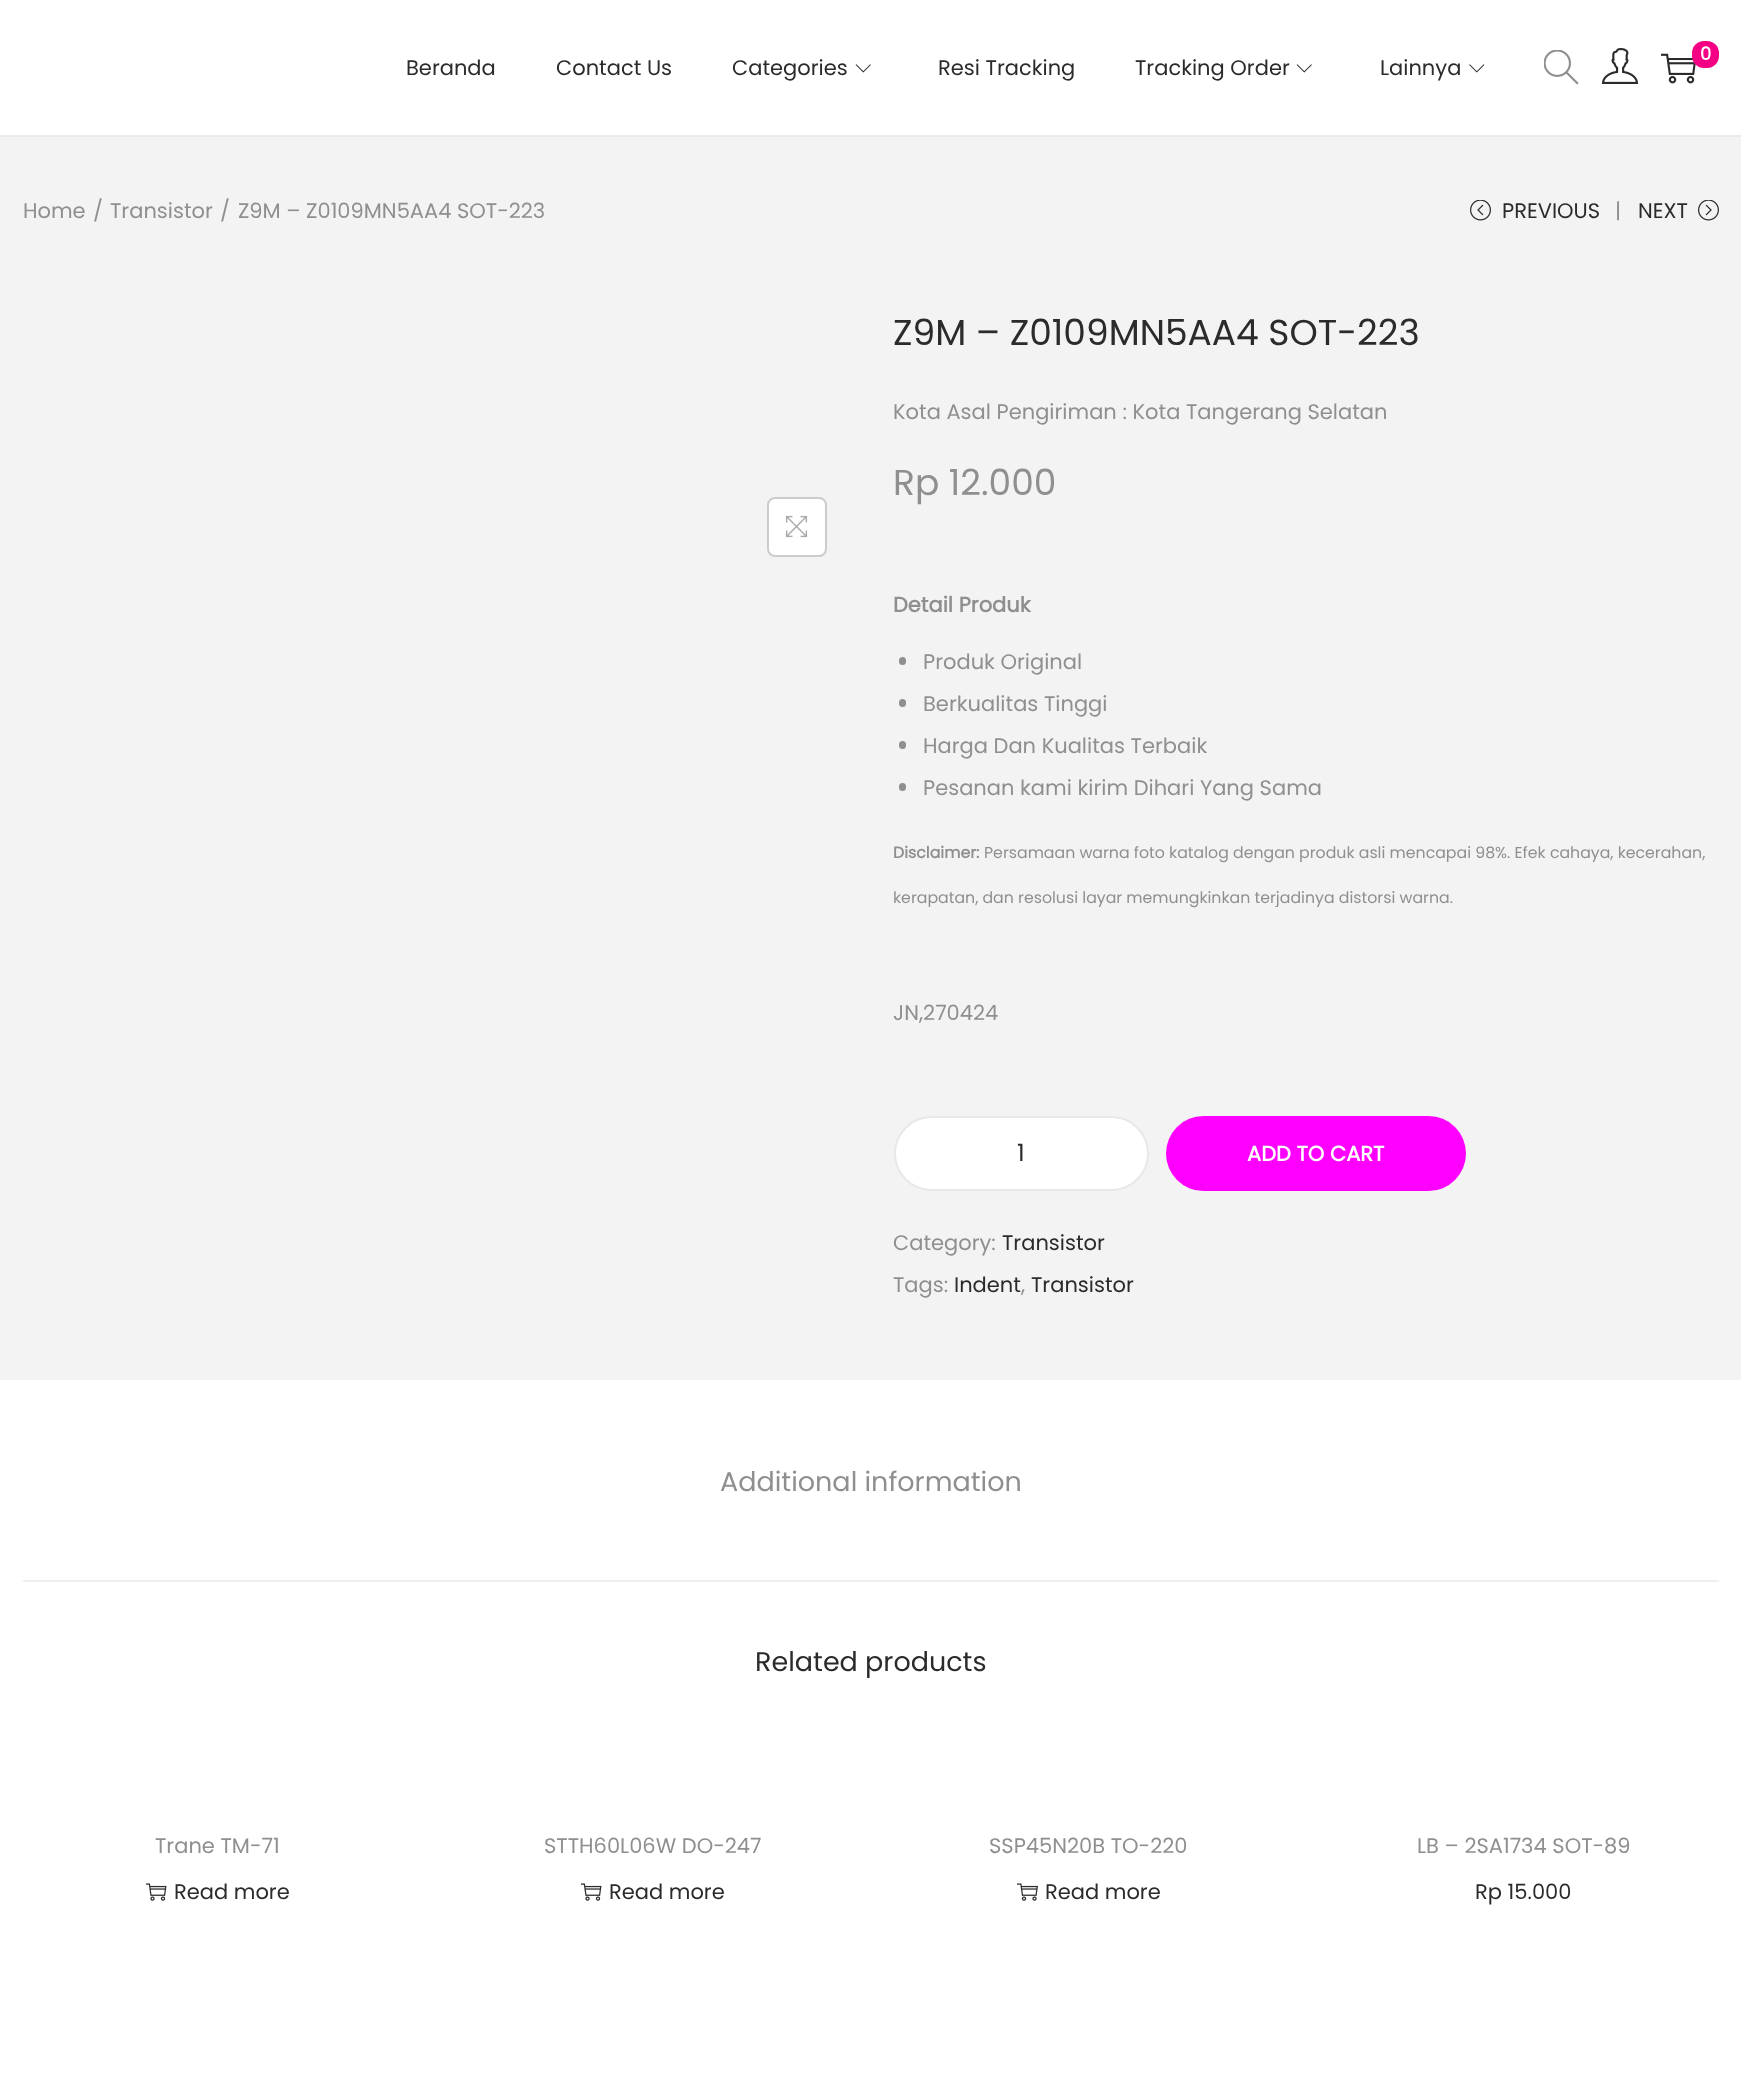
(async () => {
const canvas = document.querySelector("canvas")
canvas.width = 1741
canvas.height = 2081
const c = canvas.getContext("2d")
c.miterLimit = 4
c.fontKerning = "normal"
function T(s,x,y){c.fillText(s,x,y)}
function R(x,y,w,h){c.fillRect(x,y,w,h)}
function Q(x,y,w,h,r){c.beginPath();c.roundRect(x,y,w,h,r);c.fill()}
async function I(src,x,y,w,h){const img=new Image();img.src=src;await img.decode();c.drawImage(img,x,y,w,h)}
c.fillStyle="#fff"
R(0,0,1741,2081)
c.fillStyle="#eaeaea"
R(0,135,1741,2)
await I("1.png",1544,50,35,35)
await I("2.png",1602,48,36,36)
await I("3.png",1661,53,35,31)
c.fillStyle="#f50085"
Q(1692,41,27,27,12)
c.font="bold 18px Poppins"
c.fillStyle="#fff"
T("0",1700,60)
c.font="21px Poppins"
c.fillStyle="#2b2b2b"
T("Beranda",406,75)
T("Contact Us",556,75)
T("Categories",732,75)
await I("4.png",855,64,16,9)
T("Resi Tracking",938,75)
T("Tracking Order",1135,75)
await I("4.png",1296,64,16,9)
T("Lainnya",1380,75)
await I("5.png",1469,64,16,9)
c.fillStyle="#f3f3f3"
R(0,137,1741,1243)
c.fillStyle="#8f8f8f"
T("Home",23,218)
T("/",93,218)
T("Transistor",110,218)
T("/",220,218)
T("Z9M – Z0109MN5AA4 SOT-223",238,218)
await I("6.png",1470,200,21,21)
c.fillStyle="#2b2b2b"
T("PREVIOUS",1502,218)
c.fillStyle="#8f8f8f"
T("|",1615,218)
c.fillStyle="#2b2b2b"
T("NEXT",1638,218)
await I("7.png",1698,200,21,21)
c.fillStyle="#fff"
c.beginPath()
c.roundRect(768,498,58,58,7)
c.fill()
c.strokeStyle="#ccc"
c.lineWidth=2
c.stroke()
await I("8.png",785,515,23,23)
c.font="36px Poppins"
c.fillStyle="#2b2b2b"
T("Z9M – Z0109MN5AA4 SOT-223",893,345)
c.font="21px Poppins"
c.fillStyle="#8f8f8f"
T("Kota Asal Pengiriman : Kota Tangerang Selatan",893,419)
c.font="36px Poppins"
T("Rp 12.000",893,495)
c.font="bold 21px Poppins"
T("Detail Produk",893,612)
Q(899,657,7,8,3.5)
c.font="21px Poppins"
T("Produk Original",923,669)
Q(899,699,7,8,3.5)
T("Berkualitas Tinggi",923,711)
Q(899,741,7,8,3.5)
T("Harga Dan Kualitas Terbaik",923,753)
Q(899,783,7,8,3.5)
T("Pesanan kami kirim Dihari Yang Sama",923,795)
c.font="bold 15.75px Poppins"
T("Disclaimer:",893,858)
c.font="15.75px Poppins"
T("Persamaan warna foto katalog dengan produk asli mencapai 98%. Efek cahaya, kecerahan,",984,858)
T("kerapatan, dan resolusi layar memungkinkan terjadinya distorsi warna.",893,903)
c.font="21px Poppins"
T("JN,270424",893,1020)
c.fillStyle="#fff"
c.beginPath()
c.roundRect(895,1117,253,73,36.5)
c.fill()
c.strokeStyle="#e8e8e8"
c.stroke()
c.font="24px Poppins"
c.fillStyle="#2b2b2b"
T("1",1017,1161)
c.fillStyle="#f0f"
Q(1166,1116,300,75,37.5)
c.font="bold 21px Poppins"
c.fillStyle="#fff"
T("ADD TO CART",1247,1161)
c.font="21px Poppins"
c.fillStyle="#8f8f8f"
T("Category:",893,1250)
c.fillStyle="#2b2b2b"
T("Transistor",1002,1250)
c.fillStyle="#8f8f8f"
T("Tags:",893,1292)
c.fillStyle="#2b2b2b"
T("Indent",954,1292)
c.fillStyle="#8f8f8f"
T(",",1021,1292)
c.fillStyle="#2b2b2b"
T("Transistor",1031,1292)
c.font="27px Poppins"
c.fillStyle="#8f8f8f"
T("Additional information",720,1491)
c.fillStyle="#efefef"
R(23,1580,1696,2)
c.fillStyle="#2b2b2b"
T("Related products",755,1671)
c.font="21px Poppins"
c.fillStyle="#8f8f8f"
T("Trane TM-71",155,1853)
await I("9.png",146,1883,21,18)
c.fillStyle="#2b2b2b"
T("Read more",174,1899)
c.fillStyle="#8f8f8f"
T("STTH60L06W DO-247",544,1853)
await I("9.png",581,1883,21,18)
c.fillStyle="#2b2b2b"
T("Read more",609,1899)
c.fillStyle="#8f8f8f"
T("SSP45N20B TO-220",989,1853)
await I("10.png",1017,1883,21,18)
c.fillStyle="#2b2b2b"
T("Read more",1045,1899)
c.fillStyle="#8f8f8f"
T("LB – 2SA1734 SOT-89",1417,1853)
c.fillStyle="#2b2b2b"
T("Rp 15.000",1475,1899)
})()
